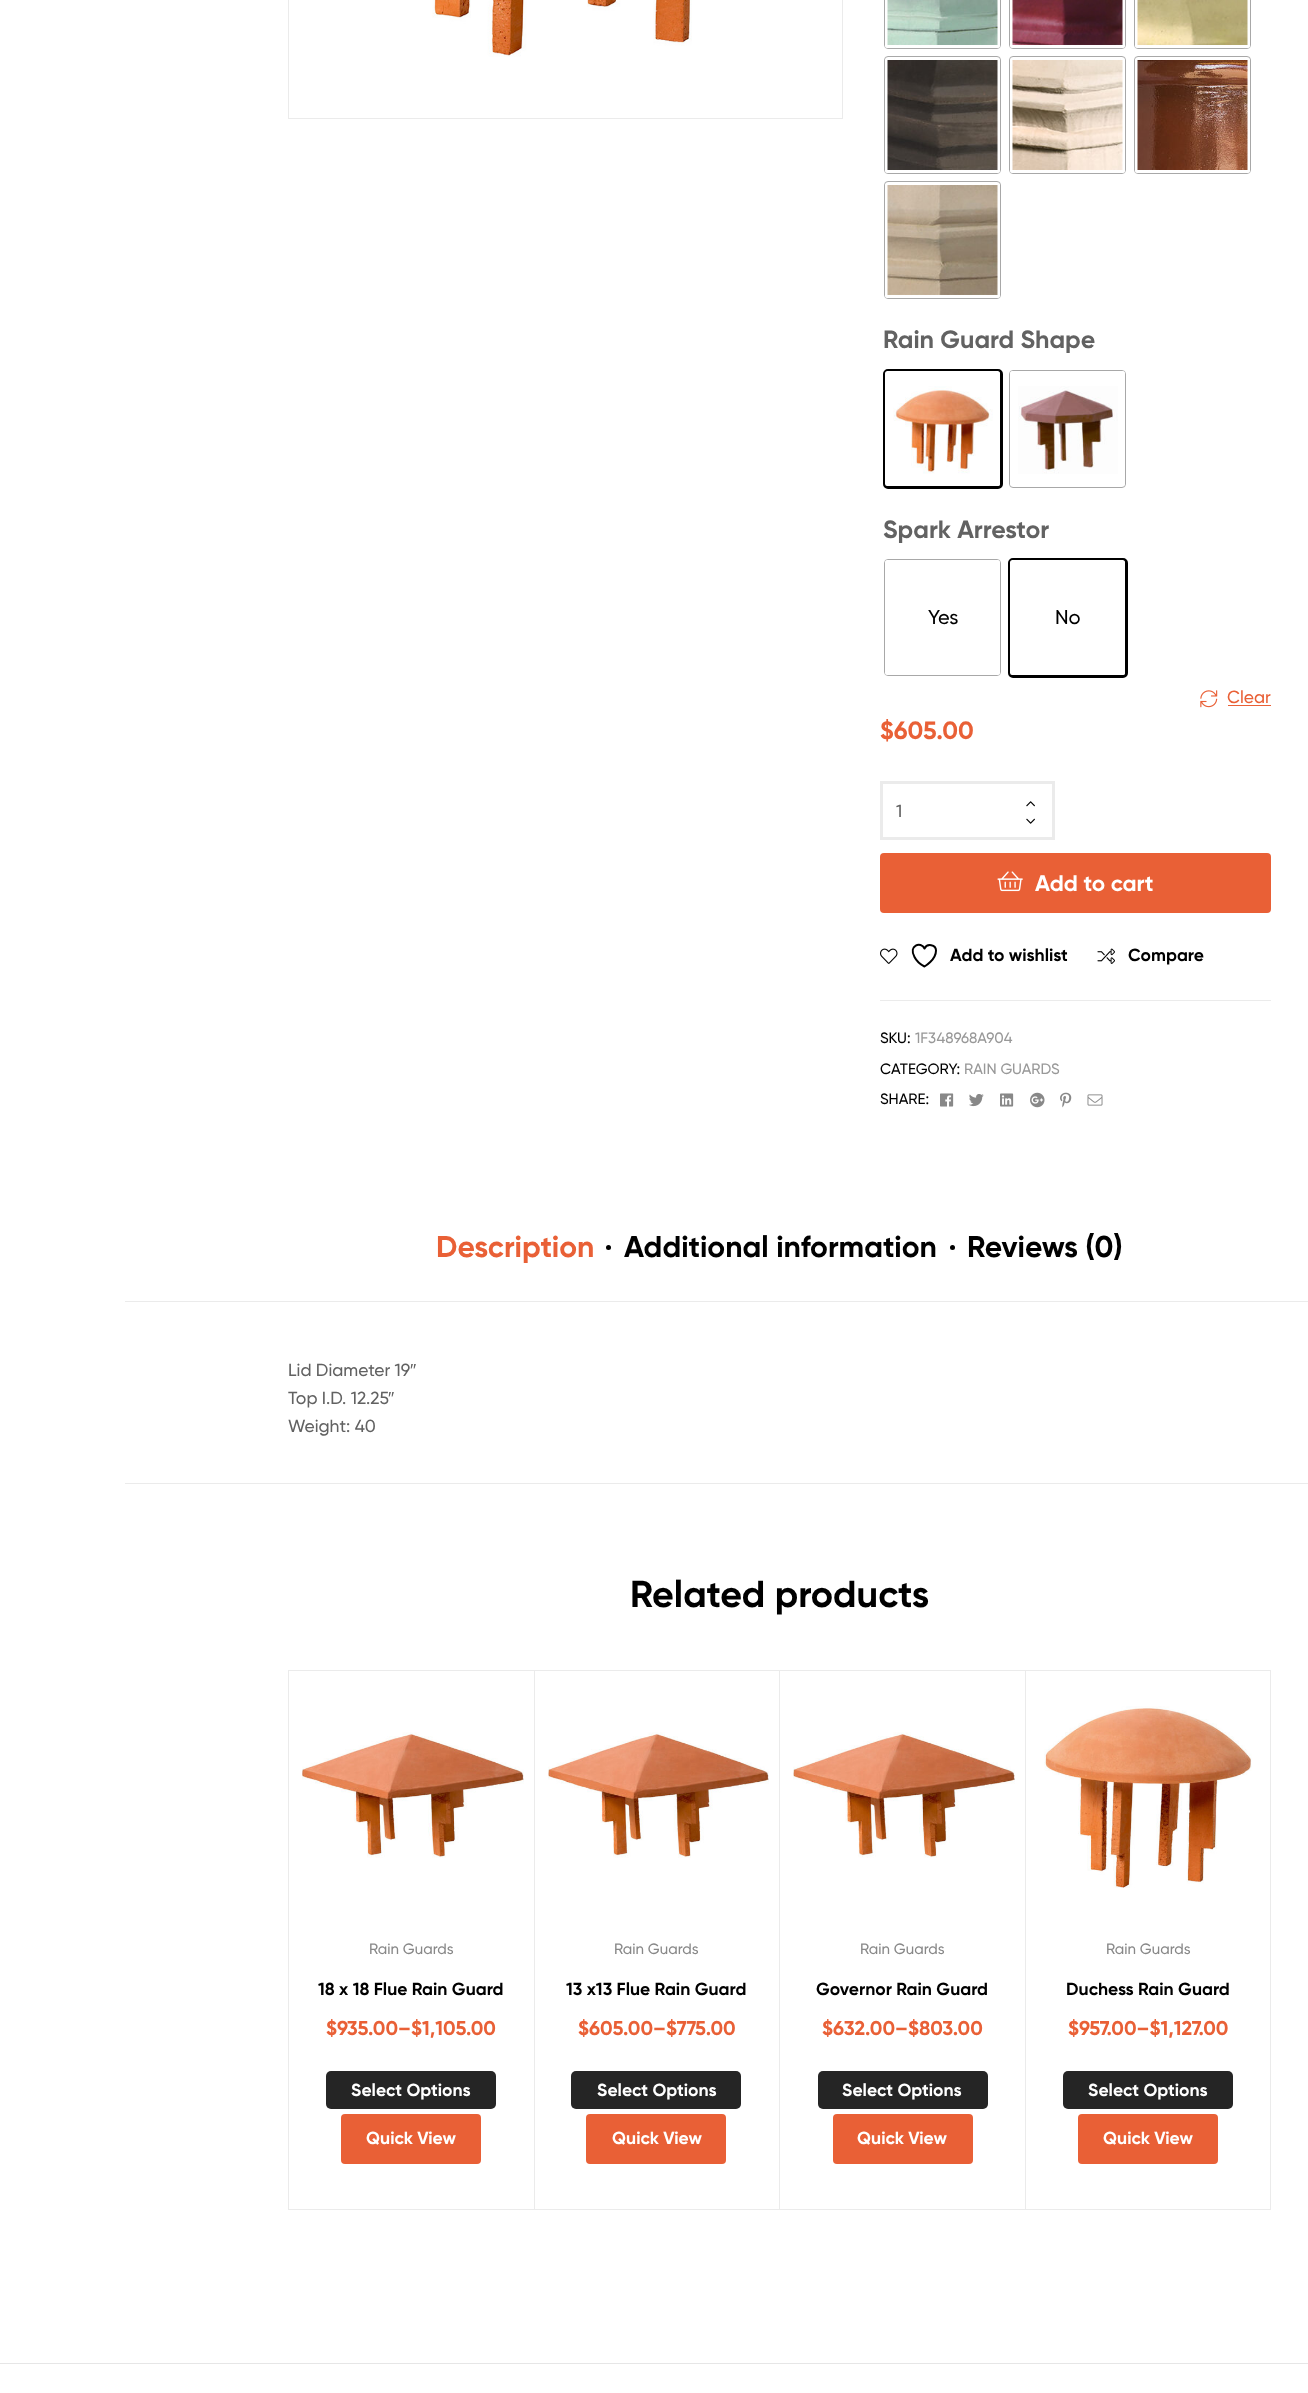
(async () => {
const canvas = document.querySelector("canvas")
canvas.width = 1308
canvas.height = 2393
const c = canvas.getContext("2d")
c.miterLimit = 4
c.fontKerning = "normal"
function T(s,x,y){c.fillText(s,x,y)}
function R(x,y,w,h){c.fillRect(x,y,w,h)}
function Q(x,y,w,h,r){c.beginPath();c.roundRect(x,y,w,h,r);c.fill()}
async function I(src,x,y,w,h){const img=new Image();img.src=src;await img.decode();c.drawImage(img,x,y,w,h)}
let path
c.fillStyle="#fff"
R(0,0,1308,2393)
c.strokeStyle="#ebebeb"
c.strokeRect(288.5,-.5,554,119)
await I("1.png",432,0,260,57)
c.beginPath()
c.roundRect(884.5,-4.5,116,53,3.5)
c.strokeStyle="#a8a8a8"
c.stroke()
Q(885,-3,115,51,2.5)
await I("2.png",887,0,111,45)
c.beginPath()
c.roundRect(1009.5,-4.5,116,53,3.5)
c.stroke()
Q(1010,-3,115,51,2.5)
await I("3.png",1012,0,111,45)
c.beginPath()
c.roundRect(1134.5,-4.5,116,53,3.5)
c.stroke()
Q(1135,-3,115,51,2.5)
await I("4.png",1137,0,111,45)
c.beginPath()
c.roundRect(884.5,56.5,116,117,3.5)
c.stroke()
Q(885,58,115,115,2.5)
await I("5.png",887,60,111,110)
c.beginPath()
c.roundRect(1009.5,56.5,116,117,3.5)
c.stroke()
Q(1010,58,115,115,2.5)
await I("6.png",1012,60,111,110)
c.beginPath()
c.roundRect(1134.5,56.5,116,117,3.5)
c.stroke()
Q(1135,58,115,115,2.5)
await I("7.png",1137,60,111,110)
c.beginPath()
c.roundRect(884.5,181.5,116,117,3.5)
c.stroke()
Q(885,183,115,115,2.5)
await I("8.png",887,185,111,110)
c.font="bold 25px Gilroy"
c.fillStyle="#626262"
T("Rain Guard Shape",883,348)
c.beginPath()
c.roundRect(884.5,370.5,117,117,3.5)
c.strokeStyle="#000"
c.lineWidth=3
c.stroke()
c.fillStyle="#fff"
Q(885,371,115,115,2.5)
await I("9.png",893,386,100,88)
c.beginPath()
c.roundRect(1009.5,370.5,116,117,3.5)
c.strokeStyle="#a8a8a8"
c.lineWidth=1
c.stroke()
Q(1010,371,115,115,2.5)
await I("10.png",1018,386,100,88)
c.fillStyle="#626262"
T("Spark Arrestor",883,538)
c.beginPath()
c.roundRect(884.5,559.5,116,116,3.5)
c.stroke()
c.fillStyle="#fff"
Q(885,560,115,115,2.5)
c.font="500 20px Gilroy"
c.fillStyle="#000"
T("Yes",928,624)
c.beginPath()
c.roundRect(1009.5,559.5,117,117,3.5)
c.strokeStyle="#000"
c.lineWidth=3
c.stroke()
c.fillStyle="#fff"
Q(1010,560,115,115,2.5)
c.fillStyle="#000"
T("No",1055,624)
await I("11.png",1200,690,18,18)
c.font="500 17.5px Gilroy"
c.fillStyle="#e96036"
T("Clear",1227,703)
R(1228,705,43,1)
c.font="bold 25px Gilroy"
T("$605.00",880,739)
c.strokeStyle="#ebebeb"
c.strokeRect(881.5,782.5,172,56)
c.font="500 17.5px Gilroy"
c.fillStyle="#626262"
T("1",896,817)
await I("12.png",1026,801,9,6)
await I("13.png",1026,818,9,6)
c.fillStyle="#e96036"
Q(880,853,391,60,4)
await I("14.png",997,871,26,21)
c.font="bold 22.5px Gilroy"
c.fillStyle="#fff"
T("Add to cart",1035,891)
await I("15.png",880,948,18,16)
path = new Path2D("M936 950.5c0-6-9-7.5-11.5-2c-3.5-7.5-16.5-3-10 8.5c2 4 6 7.5 10 9.5c0 0 11.5-6.5 11.5-16z")
c.strokeStyle="#000"
c.lineWidth=2
c.lineCap="round"
c.lineJoin="round"
c.stroke(path)
c.font="bold 17.5px Gilroy"
c.fillStyle="#000"
T("Add to wishlist",950,961)
await I("16.png",1097,948,18,16)
T("Compare",1128,961)
c.fillStyle="#ebebeb"
R(880,1000,391,1)
c.font="500 15px Gilroy"
c.fillStyle="#000"
T("SKU:",880,1043)
c.fillStyle="#999"
T("1F348968A904",915,1043)
c.fillStyle="#000"
T("CATEGORY:",880,1074)
c.fillStyle="#999"
T("RAIN GUARDS",964,1074)
c.fillStyle="#000"
T("SHARE:",880,1104)
await I("17.png",940,1093,14,14)
await I("18.png",969,1094,15,13)
await I("19.png",1000,1093,14,14)
await I("20.png",1030,1092,15,16)
await I("21.png",1060,1092,12,16)
await I("22.png",1087,1094,16,12)
c.font="bold 30px Gilroy"
c.fillStyle="#e96036"
T("Description",436,1257)
c.fillStyle="#000"
c.beginPath()
c.arc(608.5,1247.5,2.5,0,7)
c.fill()
T("Additional information",624,1257)
c.beginPath()
c.arc(952.5,1247.5,2.5,0,7)
c.fill()
T("Reviews (0)",967,1257)
c.fillStyle="#ebebeb"
R(125,1301,1183,1)
c.font="500 17.5px Gilroy"
c.fillStyle="#626262"
T("Lid Diameter 19",288,1376)
c.font="17.5px Liberation Sans"
T("″",410,1376)
c.font="500 17.5px Gilroy"
T("Top I.D. 12.25",288,1404)
c.font="17.5px Liberation Sans"
T("″",388,1404)
c.font="500 17.5px Gilroy"
T("Weight: 40",288,1432)
c.fillStyle="#ebebeb"
R(125,1483,1183,1)
c.font="bold 37.5px Gilroy"
c.fillStyle="#000"
T("Related products",630,1607)
c.strokeStyle="#ebebeb"
c.lineWidth=1
c.lineJoin="miter"
c.strokeRect(288.5,1670.5,246,539)
await I("23.png",302,1732,222,126)
c.font="500 15px Gilroy"
c.fillStyle="#888"
T("Rain Guards",369,1954)
c.font="bold 17.5px Gilroy"
c.fillStyle="#000"
T("18 x 18 Flue Rain Guard",318,1995)
c.font="bold 20px Gilroy"
c.fillStyle="#e96036"
T("$935.00–$1,105.00",326,2035)
c.fillStyle="#252525"
Q(326,2071,170,38,5)
c.font="bold 17.5px Gilroy"
c.fillStyle="#fff"
T("Select Options",351,2096)
c.fillStyle="#e96036"
Q(341,2114,140,50,4)
c.fillStyle="#fff"
T("Quick View",366,2144)
c.strokeRect(534.5,1670.5,245,539)
await I("24.png",548,1732,221,126)
c.font="500 15px Gilroy"
c.fillStyle="#888"
T("Rain Guards",614,1954)
c.font="bold 17.5px Gilroy"
c.fillStyle="#000"
T("13 x13 Flue Rain Guard",566,1995)
c.font="bold 20px Gilroy"
c.fillStyle="#e96036"
T("$605.00–$775.00",578,2035)
c.fillStyle="#252525"
Q(571,2071,170,38,5)
c.font="bold 17.5px Gilroy"
c.fillStyle="#fff"
T("Select Options",597,2096)
c.fillStyle="#e96036"
Q(586,2114,140,50,4)
c.fillStyle="#fff"
T("Quick View",612,2144)
c.strokeRect(779.5,1670.5,246,539)
await I("25.png",793,1732,222,126)
c.font="500 15px Gilroy"
c.fillStyle="#888"
T("Rain Guards",860,1954)
c.font="bold 17.5px Gilroy"
c.fillStyle="#000"
T("Governor Rain Guard",816,1995)
c.font="bold 20px Gilroy"
c.fillStyle="#e96036"
T("$632.00–$803.00",822,2035)
c.fillStyle="#252525"
Q(818,2071,170,38,5)
c.font="bold 17.5px Gilroy"
c.fillStyle="#fff"
T("Select Options",842,2096)
c.fillStyle="#e96036"
Q(833,2114,140,50,4)
c.fillStyle="#fff"
T("Quick View",857,2144)
c.strokeRect(1025.5,1670.5,245,539)
await I("26.png",1044,1706,208,182)
c.font="500 15px Gilroy"
c.fillStyle="#888"
T("Rain Guards",1106,1954)
c.font="bold 17.5px Gilroy"
c.fillStyle="#000"
T("Duchess Rain Guard",1066,1995)
c.font="bold 20px Gilroy"
c.fillStyle="#e96036"
T("$957.00–$1,127.00",1068,2035)
c.fillStyle="#252525"
Q(1063,2071,170,38,5)
c.font="bold 17.5px Gilroy"
c.fillStyle="#fff"
T("Select Options",1088,2096)
c.fillStyle="#e96036"
Q(1078,2114,140,50,4)
c.fillStyle="#fff"
T("Quick View",1103,2144)
c.fillStyle="#e6e6e6"
R(0,2363,1308,1)
})()
